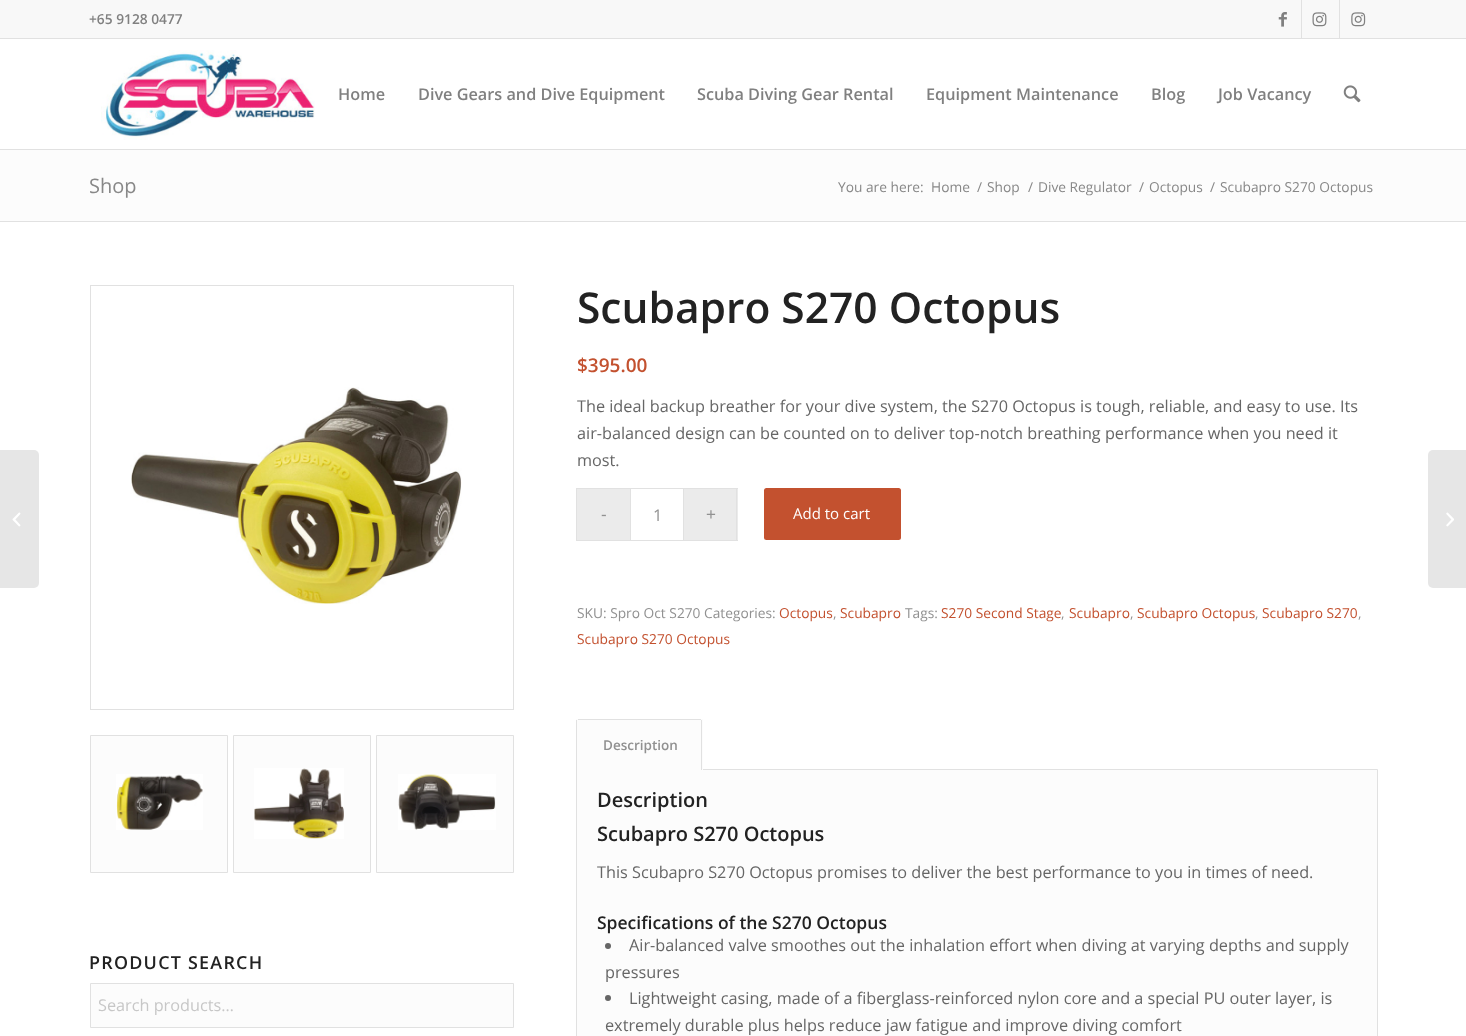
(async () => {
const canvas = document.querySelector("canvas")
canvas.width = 1466
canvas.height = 1036
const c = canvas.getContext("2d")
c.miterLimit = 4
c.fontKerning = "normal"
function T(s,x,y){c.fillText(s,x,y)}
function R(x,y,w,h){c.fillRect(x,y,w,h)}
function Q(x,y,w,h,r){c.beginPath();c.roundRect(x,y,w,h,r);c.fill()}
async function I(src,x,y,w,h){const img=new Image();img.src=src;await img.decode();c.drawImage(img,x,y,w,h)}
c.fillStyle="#fff"
R(0,0,1466,1036)
c.fillStyle="#f8f8f8"
R(0,0,1466,38)
c.fillStyle="#e1e1e1"
R(0,38,1466,1)
c.font="600 13.75px Open Sans"
c.fillStyle="#808080"
T("+65 9128 0477",89,24)
c.fillStyle="#e1e1e1"
R(1301,0,1,38)
await I("1.png",1278,12,9,15)
R(1339,0,1,38)
await I("2.png",1312,12,15,15)
await I("3.png",1351,12,15,15)
R(0,149,1466,1)
await I("4.png",101,50,214,90)
c.font="600 16.25px Open Sans"
c.fillStyle="#808080"
T("Home",338,100)
T("Dive Gears and Dive Equipment",418,100)
T("Scuba Diving Gear Rental",697,100)
T("Equipment Maintenance",926,100)
T("Blog",1151,100)
T("Job Vacancy",1218,100)
await I("5.png",1343,85,18,18)
c.fillStyle="#e6e6e6"
c.beginPath()
c.roundRect(0,450,39,138,[0,5,5,0])
c.fill()
await I("6.png",12,512,9,15)
c.fillStyle="#fcfcfc"
R(0,150,1466,71)
c.font="20px Open Sans"
c.fillStyle="#888"
T("Shop",89,193)
c.font="13.75px Open Sans"
T("You are here:",838,192)
T("Home",931,192)
T("/",977,192)
T("Shop",987,192)
T("/",1028,192)
T("Dive Regulator",1038,192)
T("/",1139,192)
T("Octopus",1149,192)
T("/",1210,192)
T("Scubapro S270 Octopus",1220,192)
c.fillStyle="#e1e1e1"
R(0,221,1466,1)
c.strokeStyle="#e1e1e1"
c.strokeRect(90.5,285.5,423,424)
await I("7.png",130,387,332,217)
c.fillStyle="#fcfcfc"
c.beginPath()
c.rect(90.5,735.5,137,137)
c.fill()
c.stroke()
await I("8.png",116,774,87,56)
c.beginPath()
c.rect(233.5,735.5,137,137)
c.fill()
c.stroke()
await I("9.png",254,768,90,71)
c.beginPath()
c.rect(376.5,735.5,137,137)
c.fill()
c.stroke()
await I("10.png",398,774,98,56)
c.letterSpacing="1.25px"
c.font="600 17.9px Open Sans"
c.fillStyle="#222"
T("PRODUCT SEARCH",89,969)
c.fillStyle="#fcfcfc"
c.beginPath()
c.rect(90.5,983.5,423,44)
c.fill()
c.stroke()
c.letterSpacing="0px"
c.font="16.25px Open Sans"
c.fillStyle="#c7c7c7"
T("Search products…",98,1011)
c.font="600 42.5px Open Sans"
c.fillStyle="#222"
T("Scubapro S270 Octopus",577,323)
c.font="600 19px Open Sans"
c.fillStyle="#c3512f"
T("$395.00",577,372)
c.font="16.25px Open Sans"
c.fillStyle="#666"
T("The ideal backup breather for your dive system, the S270 Octopus is tough, reliable, and easy to use. Its",577,412)
T("air-balanced design can be counted on to deliver top-notch breathing performance when you need it",577,439)
T("most.",577,466)
c.fillStyle="#ebebeb"
R(577,489,53,51)
c.font="17px Liberation Sans"
c.fillStyle="#919191"
T("-",601,520)
c.fillStyle="#e1e1e1"
R(576,488,54,1)
R(576,540,54,1)
R(576,488,1,53)
c.strokeRect(630.5,488.5,53,52)
c.font="16.25px Open Sans"
c.fillStyle="#919191"
T("1",653,521)
c.fillStyle="#ebebeb"
R(684,489,54,51)
c.font="17px Liberation Sans"
c.fillStyle="#919191"
T("+",706,520)
c.fillStyle="#e1e1e1"
R(684,488,54,1)
R(736,488,1,53)
R(684,540,54,1)
c.fillStyle="#c3512f"
Q(764,488,137,52,2.5)
c.font="15px Open Sans"
c.fillStyle="#fff"
T("Add to cart",793,519)
c.font="13.75px Open Sans"
c.fillStyle="#919191"
T("SKU: Spro Oct S270 Categories:",577,618)
c.fillStyle="#c3512f"
T("Octopus",779,618)
c.fillStyle="#919191"
T(",",833,618)
c.fillStyle="#c3512f"
T("Scubapro",840,618)
c.fillStyle="#919191"
T("Tags:",905,618)
c.fillStyle="#c3512f"
T("S270 Second Stage",941,618)
c.fillStyle="#919191"
T(",",1061,618)
c.fillStyle="#c3512f"
T("Scubapro",1069,618)
c.fillStyle="#919191"
T(",",1130,618)
c.fillStyle="#c3512f"
T("Scubapro Octopus",1137,618)
c.fillStyle="#919191"
T(",",1255,618)
c.fillStyle="#c3512f"
T("Scubapro S270",1262,618)
c.fillStyle="#919191"
T(",",1358,618)
c.fillStyle="#c3512f"
T("Scubapro S270 Octopus",577,644)
c.fillStyle="#fcfcfc"
c.beginPath()
c.rect(576.5,769.5,801,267)
c.fill()
c.stroke()
R(576,719,127,51)
c.fillStyle="#e1e1e1"
R(578,719,123,1)
R(701,720,1,50)
R(576,720,1,50)
c.font="600 13.5px Open Sans"
c.fillStyle="#919191"
T("Description",603,750)
c.font="600 20px Open Sans"
c.fillStyle="#222"
T("Description",597,807)
T("Scubapro S270 Octopus",597,841)
c.font="16.25px Open Sans"
c.fillStyle="#666"
T("This Scubapro S270 Octopus promises to deliver the best performance to you in times of need.",597,878)
c.font="600 17.5px Open Sans"
c.fillStyle="#222"
T("Specifications of the S270 Octopus",597,929)
c.fillStyle="#666"
c.beginPath()
c.arc(608,946,3,0,7)
c.fill()
c.font="16.25px Open Sans"
T("Air-balanced valve smoothes out the inhalation effort when diving at varying depths and supply",629,951)
T("pressures",605,978)
c.beginPath()
c.arc(608,998,3,0,7)
c.fill()
T("Lightweight casing, made of a fiberglass-reinforced nylon core and a special PU outer layer, is",629,1004)
T("extremely durable plus helps reduce jaw fatigue and improve diving comfort",605,1031)
c.fillStyle="#e6e6e6"
c.beginPath()
c.roundRect(1428,450,38,138,[5,0,0,5])
c.fill()
await I("11.png",1446,512,8,15)
})()
